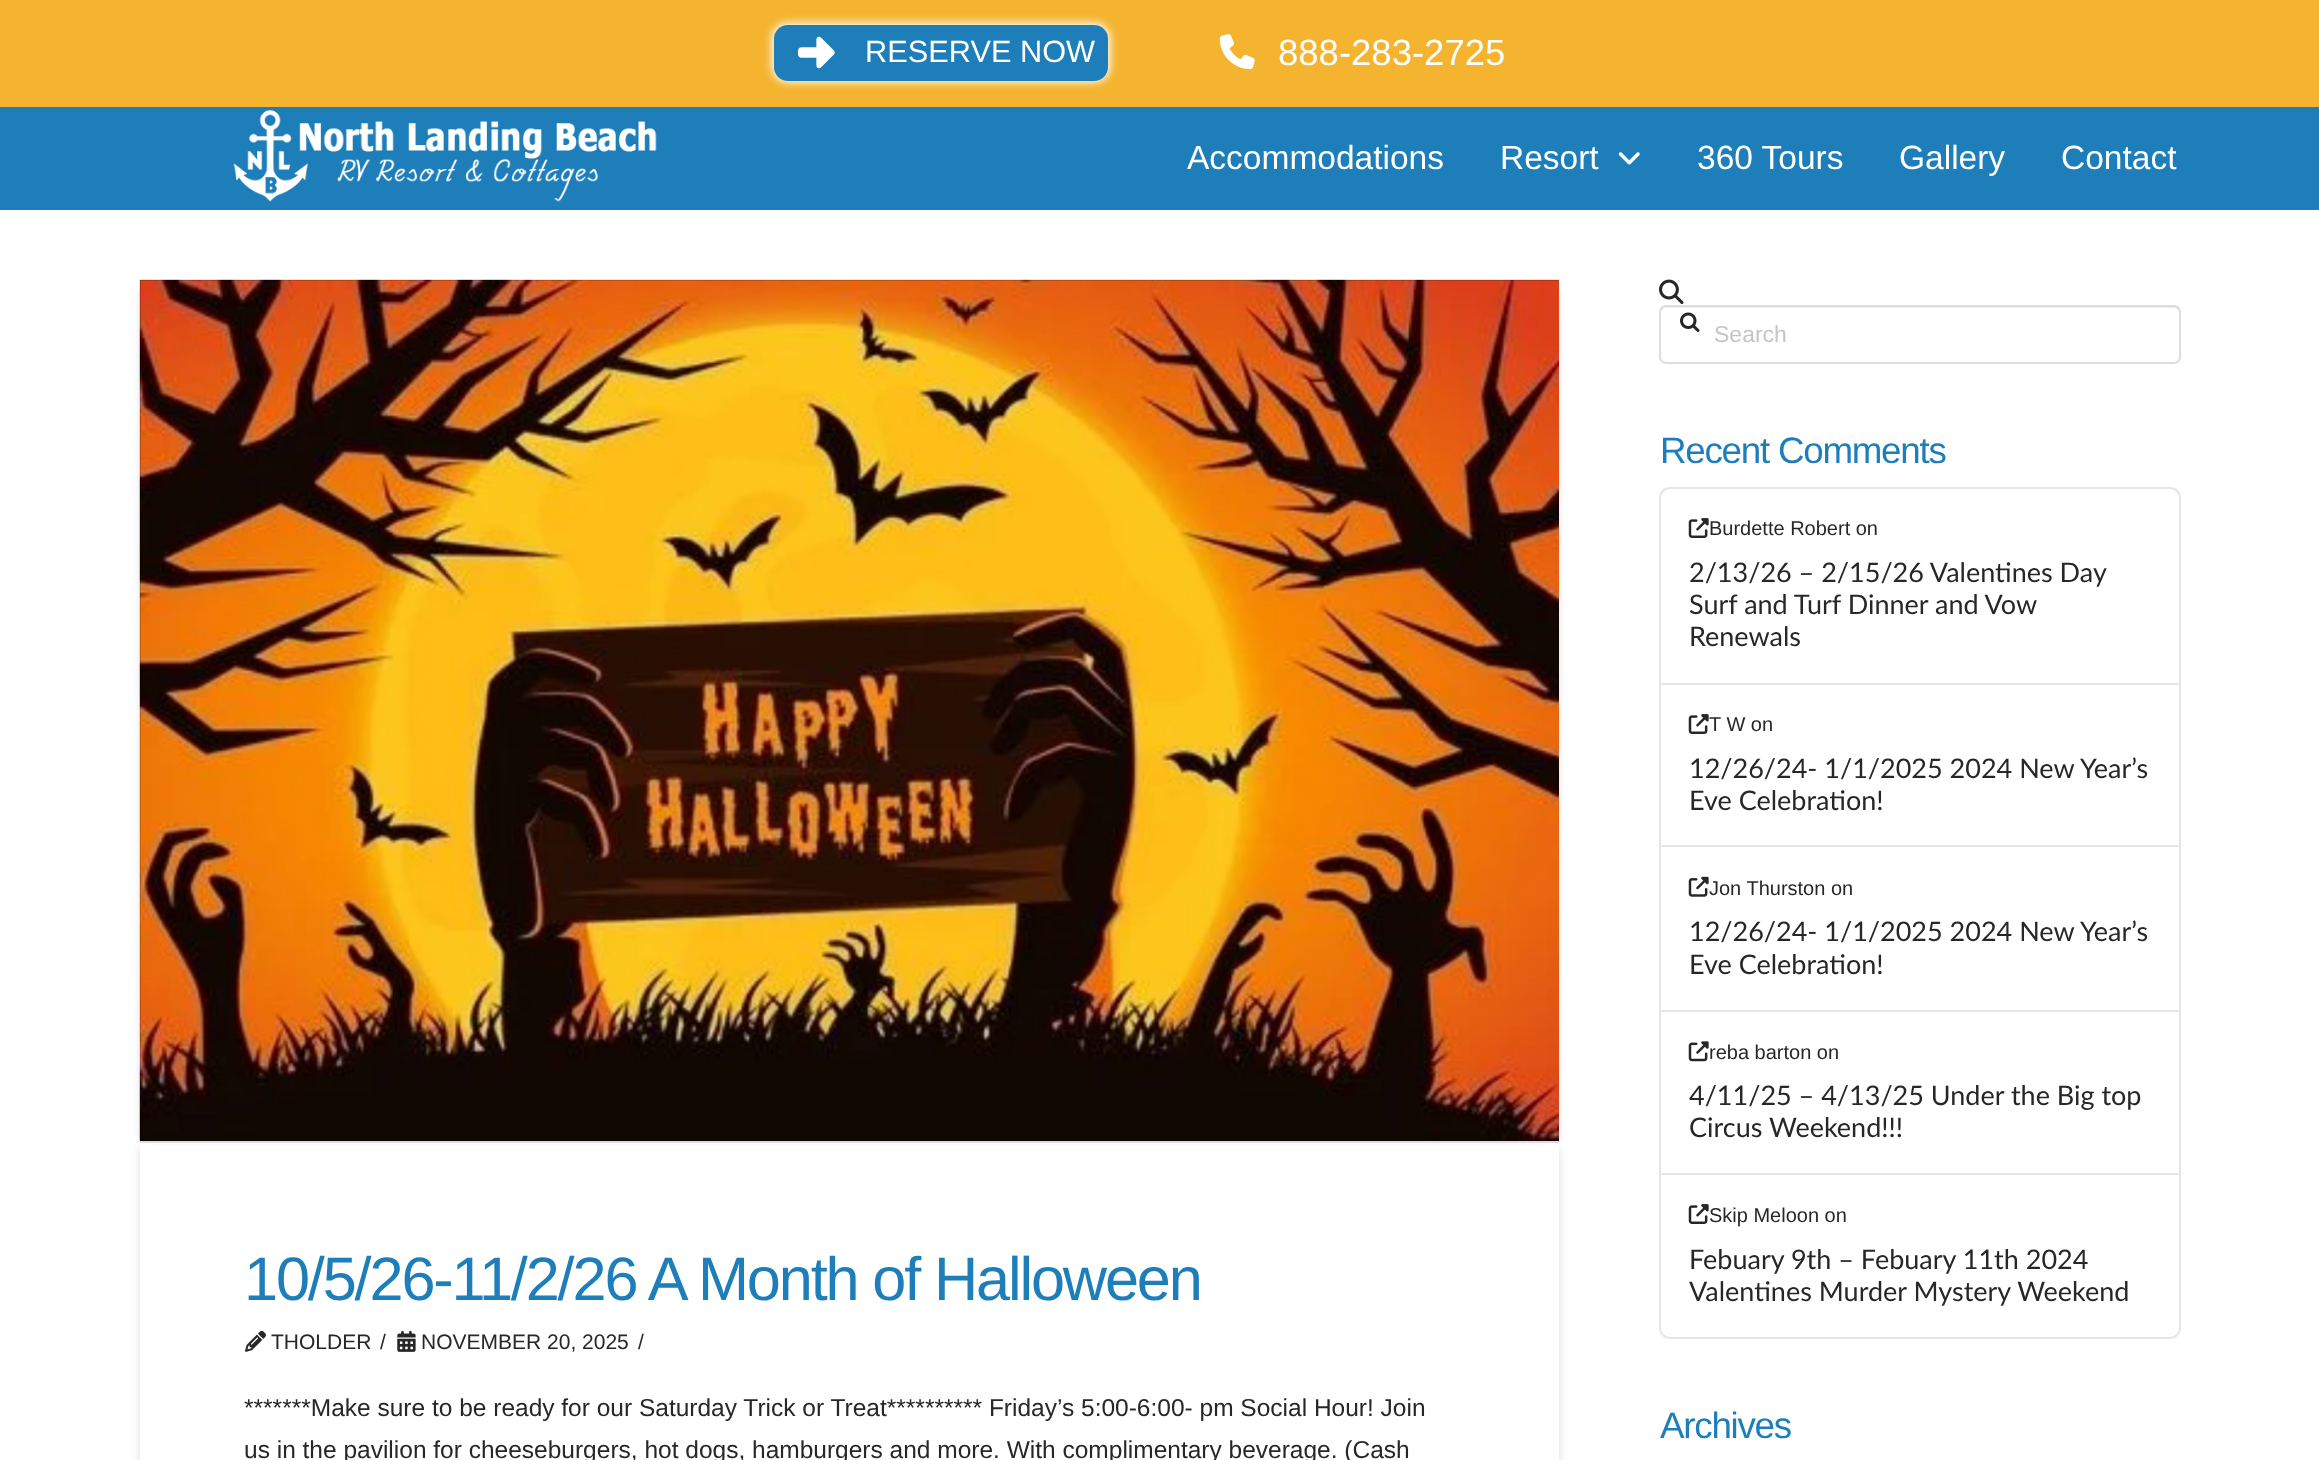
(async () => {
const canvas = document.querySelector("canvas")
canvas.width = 2319
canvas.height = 1460
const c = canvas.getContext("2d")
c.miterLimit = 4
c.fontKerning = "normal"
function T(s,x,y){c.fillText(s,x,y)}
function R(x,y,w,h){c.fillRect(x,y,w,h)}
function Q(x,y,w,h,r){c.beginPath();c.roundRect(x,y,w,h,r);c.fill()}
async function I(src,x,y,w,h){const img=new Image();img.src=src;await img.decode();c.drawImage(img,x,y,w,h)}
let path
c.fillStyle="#fff"
R(0,0,2319,1460)
c.fillStyle="#f4b430"
R(0,0,2319,107)
c.fillStyle="#fff"
c.filter="blur(4.5px)"
c.beginPath()
c.roundRect(772,23,338,59,16)
c.fill()
c.filter="none"
c.fillStyle="#1d7eba"
Q(774,25,334,56,14)
await I("1.png",798,36,37,33)
c.font="30.75px Liberation Sans"
c.fillStyle="#fff"
T("RESERVE NOW",865,62)
await I("2.png",1219,34,36,36)
c.font="36.5px Liberation Sans"
T("888-283-2725",1278,65)
c.fillStyle="#1d7eba"
R(0,107,2319,103)
await I("3.png",233,110,424,92)
c.font="33.5px Liberation Sans"
c.fillStyle="#fff"
T("Accommodations",1187,169)
T("Resort",1500,169)
await I("4.png",1618,152,22,13)
T("360 Tours",1697,169)
T("Gallery",1899,169)
T("Contact",2061,169)
c.fillStyle="#00000021"
c.filter="blur(3.5px)"
c.beginPath()
c.rect(140,291,1405,848)
c.fill()
c.filter="none"
c.filter="blur(3.5px)"
c.beginPath()
c.rect(154,291,1405,848)
c.fill()
c.filter="none"
c.save()
path = new Path2D("M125 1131h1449v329h-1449zm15 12h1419v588c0 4-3 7-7 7h-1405c-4 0-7-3-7-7z")
c.clip(path,"evenodd")
c.filter="blur(4.5px)"
c.beginPath()
c.roundRect(140,1146,1419,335,7)
c.fill()
c.filter="none"
c.restore()
c.fillStyle="#ddd"
R(140,1141,1419,2)
c.fillStyle="#000"
R(140,280,1419,861)
await I("5.png",139,279,1420,862)
c.letterSpacing="-2.15px"
c.font="61.25px Liberation Sans"
c.fillStyle="#1d7eba"
T("10/5/26-11/2/26 A Month of Halloween",244,1300)
await I("6.png",245,1330,21,22)
c.letterSpacing="0px"
c.font="21px Liberation Sans"
c.fillStyle="#272727"
T("THOLDER",271,1349)
T("/",380,1349)
await I("7.png",397,1330,19,22)
T("NOVEMBER 20, 2025",421,1349)
T("/",638,1349)
c.font="24.5px Liberation Sans"
T("*******Make sure to be ready for our Saturday Trick or Treat********** Friday’s 5:00-6:00- pm Social Hour! Join",244,1416)
T("us in the pavilion for cheeseburgers, hot dogs, hamburgers and more. With complimentary beverage. (Cash",244,1458)
await I("8.png",1659,279,25,25)
c.fillStyle="#ececec"
path = new Path2D("M1666 308h508c2 0 5 2 5 5v-2c0-3-2-5-5-5h-508c-3 0-5 2-5 5v2c0-3 2-5 5-5z")
c.fill(path)
c.beginPath()
c.roundRect(1660,306,520,57,6)
c.strokeStyle="#ddd"
c.lineWidth=2
c.stroke()
await I("9.png",1680,312,20,20)
c.font="23px Liberation Sans"
c.fillStyle="#c5c5c5"
T("Search",1714,342)
c.letterSpacing="-1.25px"
c.font="36.75px Liberation Sans"
c.fillStyle="#1d7eba"
T("Recent Comments",1660,463)
c.beginPath()
c.roundRect(1660,488,520,850,10)
c.strokeStyle="#e6e6e6"
c.stroke()
c.fillStyle="#e6e6e6"
R(1661,683,518,2)
await I("10.png",1688,518,21,20)
c.letterSpacing="0px"
c.font="20px Liberation Sans"
c.fillStyle="#272727"
T("Burdette Robert on",1709,535)
c.font="27px Lato"
T("2/13/26 – 2/15/26 Valentines Day",1689,582)
T("Surf and Turf Dinner and Vow",1689,614)
T("Renewals",1689,646)
c.fillStyle="#e6e6e6"
R(1661,845,518,2)
await I("10.png",1688,714,21,20)
c.font="20px Liberation Sans"
c.fillStyle="#272727"
T("T W on",1709,731)
c.font="27px Lato"
T("12/26/24- 1/1/2025 2024 New Year’s",1689,778)
T("Eve Celebration!",1689,810)
c.fillStyle="#e6e6e6"
R(1661,1010,518,2)
await I("11.png",1688,876,21,21)
c.font="20px Liberation Sans"
c.fillStyle="#272727"
T("Jon Thurston on",1709,895)
c.font="27px Lato"
T("12/26/24- 1/1/2025 2024 New Year’s",1689,941)
T("Eve Celebration!",1689,974)
c.fillStyle="#e6e6e6"
R(1661,1173,518,2)
await I("12.png",1688,1041,21,21)
c.font="20px Liberation Sans"
c.fillStyle="#272727"
T("reba barton on",1709,1059)
c.font="27px Lato"
T("4/11/25 – 4/13/25 Under the Big top",1689,1105)
T("Circus Weekend!!!",1689,1137)
await I("10.png",1688,1204,21,20)
c.font="20px Liberation Sans"
T("Skip Meloon on",1709,1222)
c.font="27px Lato"
T("Febuary 9th – Febuary 11th 2024",1689,1269)
T("Valentines Murder Mystery Weekend",1689,1301)
c.letterSpacing="-1.25px"
c.font="36.75px Liberation Sans"
c.fillStyle="#1d7eba"
T("Archives",1660,1438)
})()
